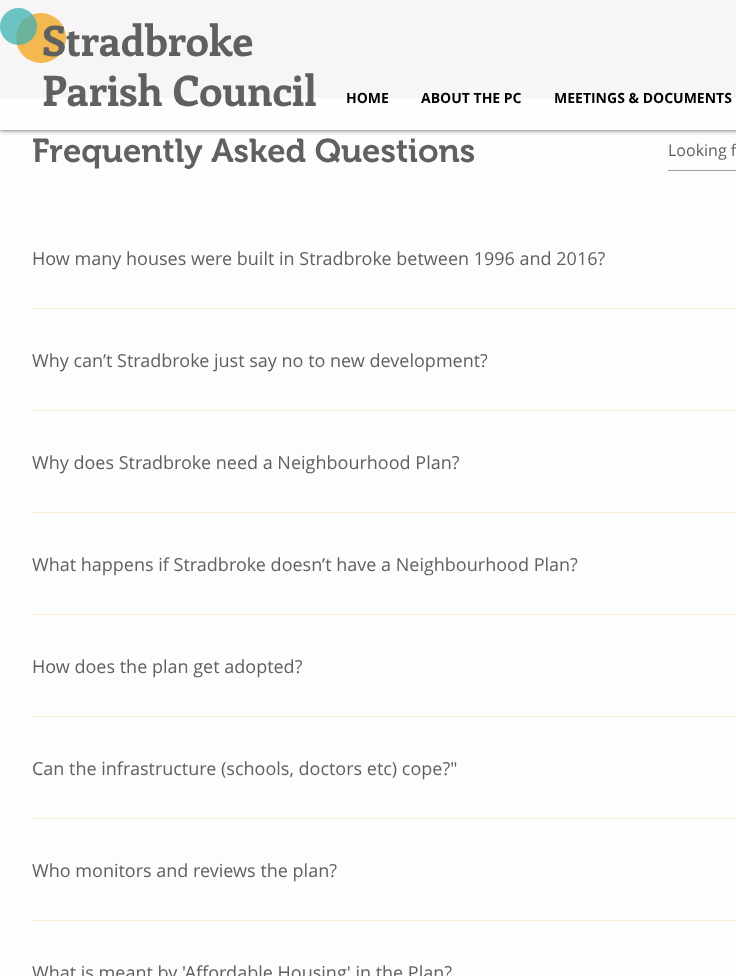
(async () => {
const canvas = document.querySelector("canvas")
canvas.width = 736
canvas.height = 976
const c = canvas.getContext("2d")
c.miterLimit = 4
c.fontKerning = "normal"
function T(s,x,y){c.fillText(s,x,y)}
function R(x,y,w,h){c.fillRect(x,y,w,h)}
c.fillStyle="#f7f5f5"
R(0,0,736,976)
c.fillStyle="#fdfdfd"
R(0,130,736,846)
c.fillStyle="#fefefe"
R(0,98,736,32)
c.save()
c.beginPath()
c.rect(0,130,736,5)
c.clip()
c.fillStyle="#000000b3"
c.filter="blur(2.5px)"
c.beginPath()
c.rect(0,0,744,130)
c.fill()
c.filter="none"
c.restore()
c.fillStyle="#f3b950"
c.beginPath()
c.arc(41,38,25,0,7)
c.fill()
c.fillStyle="#3cb2b2bf"
c.beginPath()
c.arc(18.5,26.5,18.5,0,7)
c.fill()
c.font="bold 42px Enriqueta"
c.fillStyle="#606060"
T("Stradbroke",42,56)
T("Parish Council",42,106)
c.font="bold 14px Open Sans"
c.fillStyle="#000"
T("HOME",346,103)
T("ABOUT THE PC",421,103)
T("MEETINGS & DOCUMENTS",554,103)
c.font="600 33px 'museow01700'"
c.fillStyle="#606060"
T("Frequently Asked Questions",32,162)
c.fillStyle="#9f9f9f"
R(668,170,68,1)
c.font="16px Open Sans"
c.fillStyle="#606060"
T("Looking f",668,156)
c.font="18px Open Sans"
T("How many houses were built in Stradbroke between 1996 and 2016?",32,265)
c.fillStyle="#fbedd4"
R(32,308,704,1)
c.fillStyle="#606060"
T("Why can’t Stradbroke just say no to new development?",32,367)
c.fillStyle="#fbedd4"
R(32,410,704,1)
c.fillStyle="#606060"
T("Why does Stradbroke need a Neighbourhood Plan?",32,469)
c.fillStyle="#fbedd4"
R(32,512,704,1)
c.fillStyle="#606060"
T("What happens if Stradbroke doesn’t have a Neighbourhood Plan?",32,571)
c.fillStyle="#fbedd4"
R(32,614,704,1)
c.fillStyle="#606060"
T("How does the plan get adopted?",32,673)
c.fillStyle="#fbedd4"
R(32,716,704,1)
c.fillStyle="#606060"
T("Can the infrastructure (schools, doctors etc) cope?\"",32,775)
c.fillStyle="#fbedd4"
R(32,818,704,1)
c.fillStyle="#606060"
T("Who monitors and reviews the plan?",32,877)
c.fillStyle="#fbedd4"
R(32,920,704,1)
c.fillStyle="#606060"
T("What is meant by 'Affordable Housing' in the Plan?",32,979)
})()
